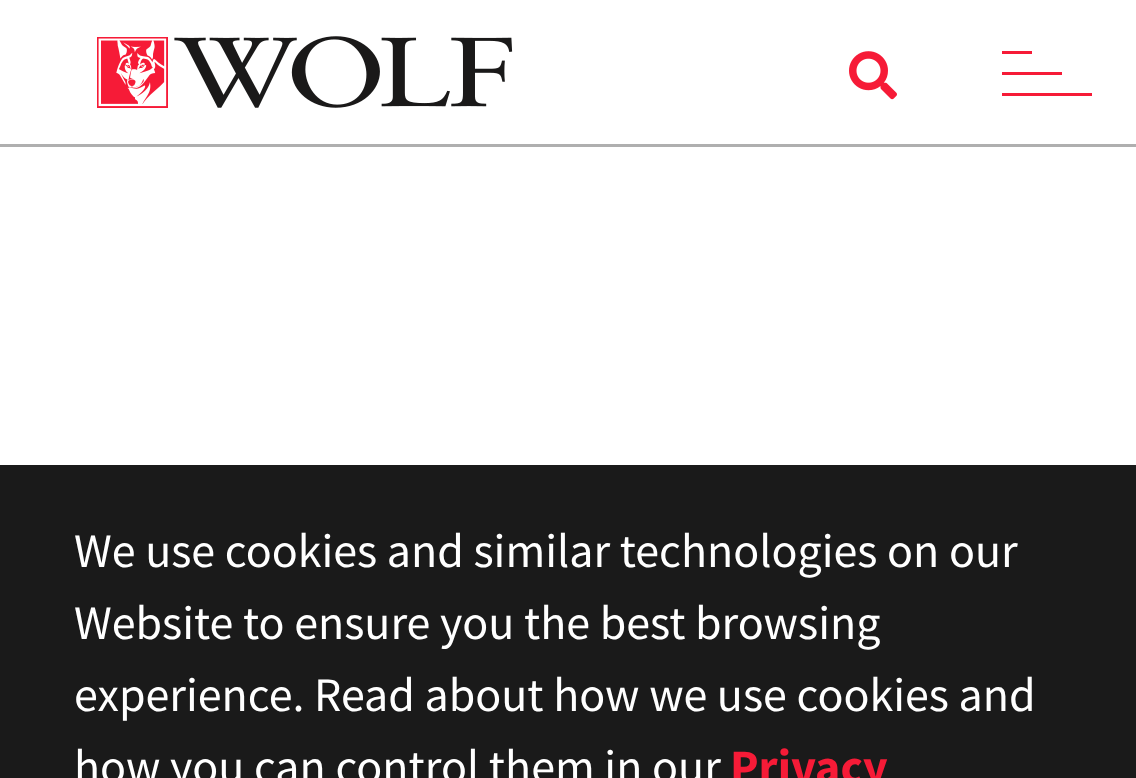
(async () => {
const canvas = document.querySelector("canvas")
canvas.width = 1136
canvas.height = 778
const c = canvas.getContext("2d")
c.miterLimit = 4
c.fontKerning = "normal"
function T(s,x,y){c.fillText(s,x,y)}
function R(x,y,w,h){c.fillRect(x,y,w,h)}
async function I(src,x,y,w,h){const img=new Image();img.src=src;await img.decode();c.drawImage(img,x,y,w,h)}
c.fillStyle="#fff"
R(0,0,1136,778)
c.fillStyle="#afafaf"
R(0,144,1136,3)
await I("1.png",97,36,416,72)
await I("2.png",849,51,48,49)
c.fillStyle="#f61b37"
R(1002,51,30,3)
R(1002,72,60,3)
R(1002,93,90,3)
c.fillStyle="#1a1a1a"
R(0,465,1136,313)
c.font="48px Source Sans Pro"
c.fillStyle="#fff"
T("We use cookies and similar technologies on our",74,567)
T("Website to ensure you the best browsing",74,639)
T("experience. Read about how we use cookies and",74,711)
T("how you can control them in our",74,783)
c.font="bold 48px Source Sans Pro"
c.fillStyle="#f61b37"
T("Privacy",730,783)
})()
